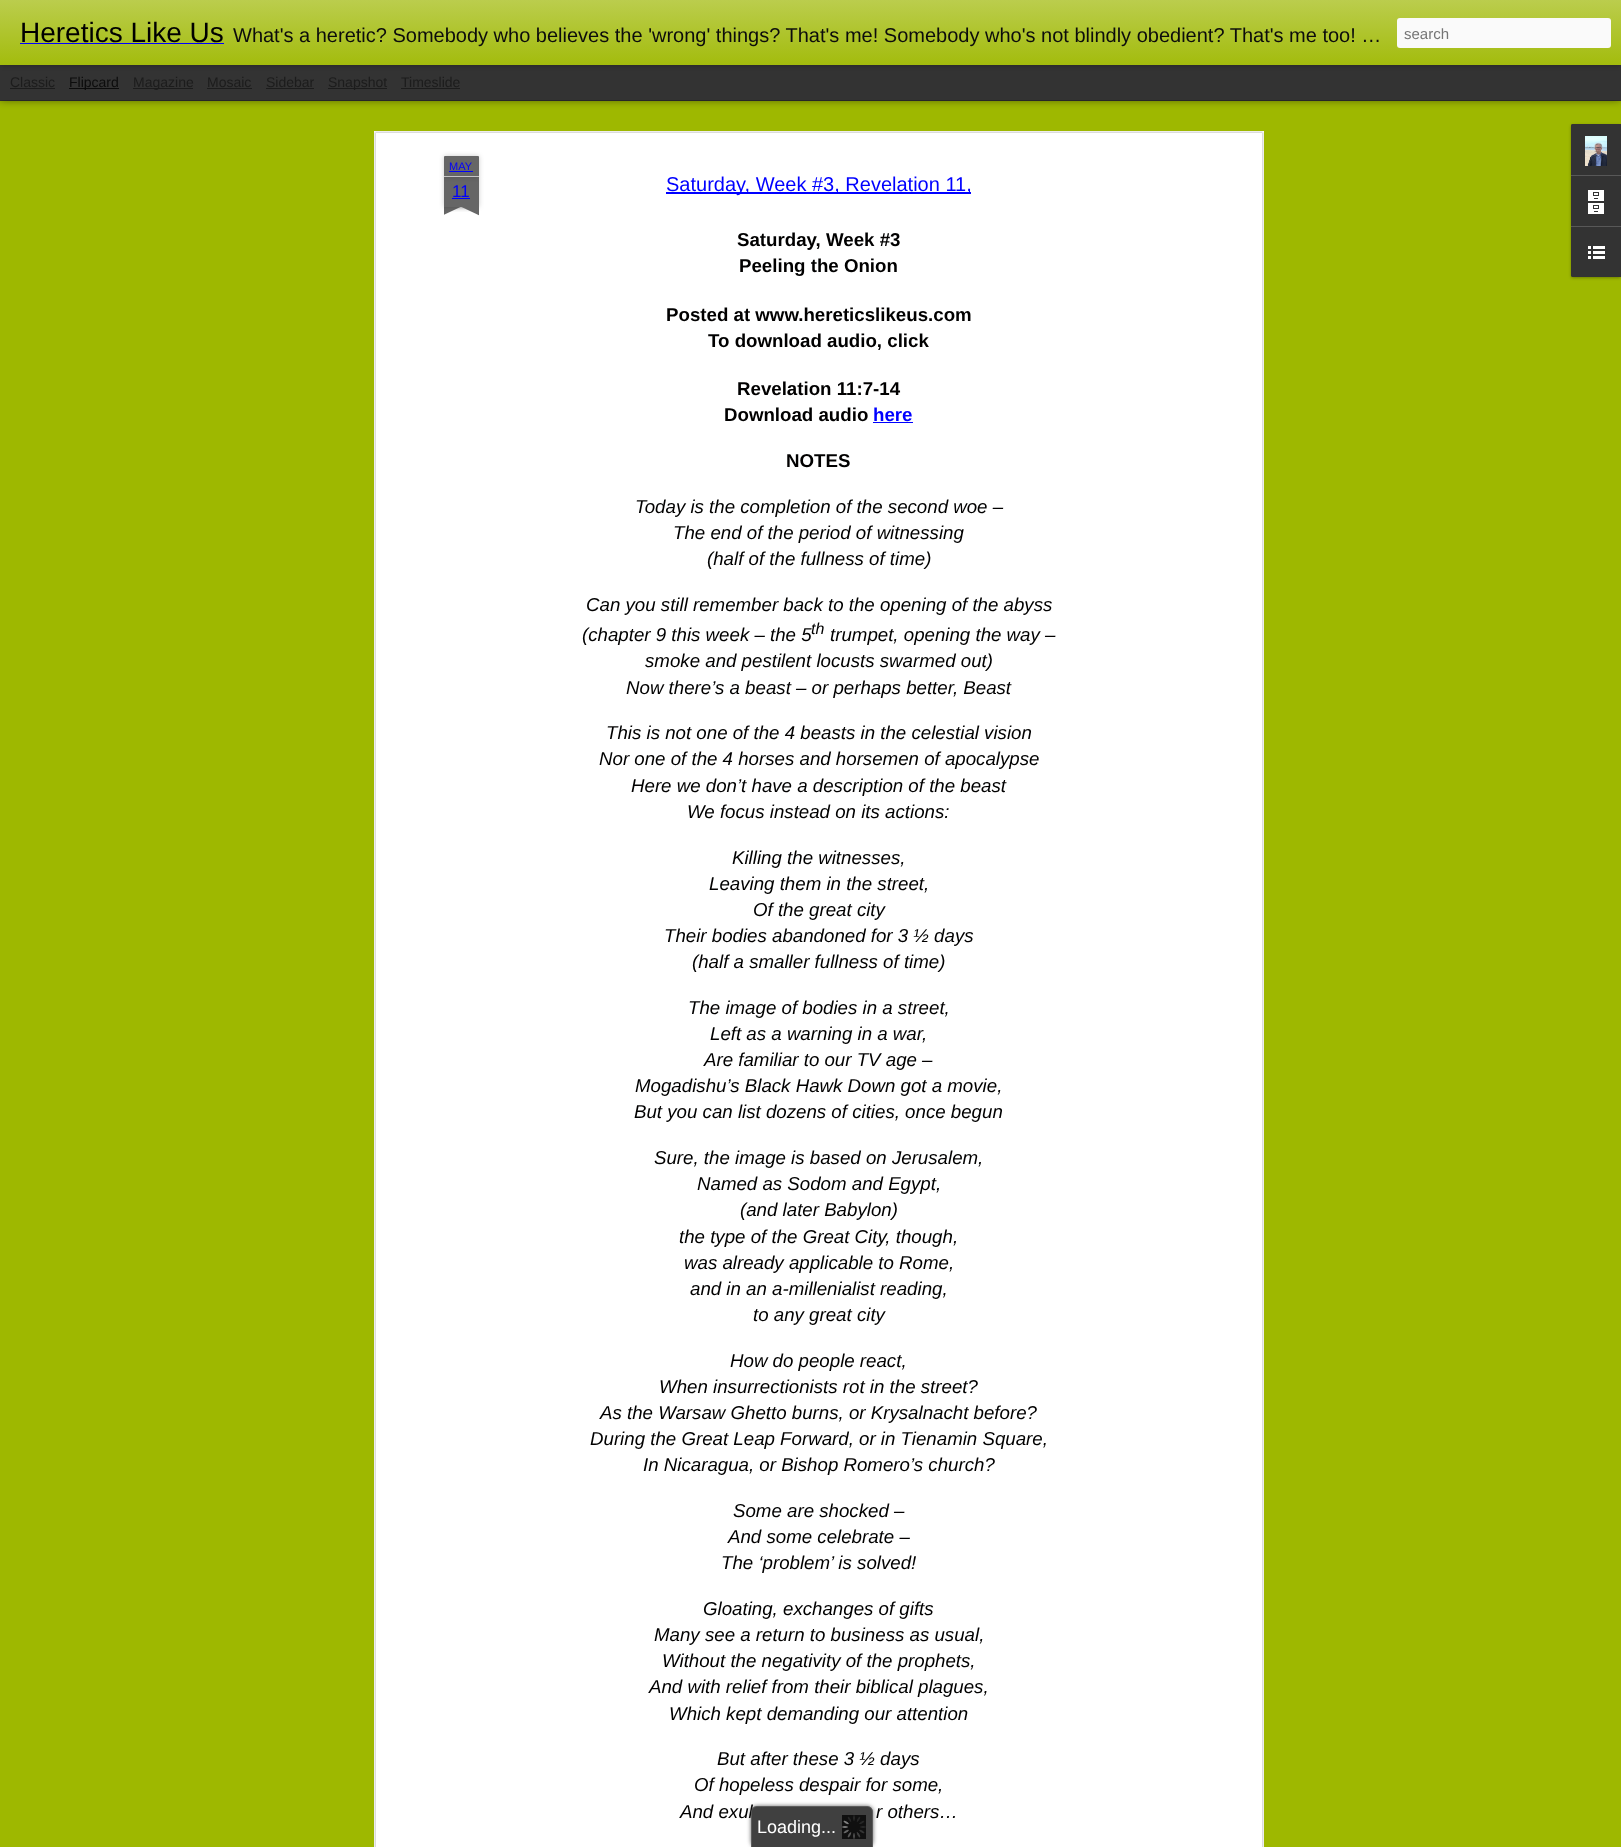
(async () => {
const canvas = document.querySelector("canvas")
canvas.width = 1621
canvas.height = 1847
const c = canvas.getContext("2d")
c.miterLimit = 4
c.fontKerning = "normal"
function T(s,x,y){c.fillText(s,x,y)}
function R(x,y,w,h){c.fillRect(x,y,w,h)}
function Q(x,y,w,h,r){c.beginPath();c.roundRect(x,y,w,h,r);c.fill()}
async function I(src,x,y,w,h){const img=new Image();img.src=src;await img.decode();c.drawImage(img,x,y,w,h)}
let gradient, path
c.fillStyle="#333"
R(0,0,1621,1847)
c.fillStyle="#9eb800"
R(0,101,1621,1746)
c.fillStyle="#00000080"
c.filter="blur(4px)"
c.beginPath()
c.rect(0,65,1621,35)
c.fill()
c.filter="none"
c.fillStyle="#333"
R(0,65,1621,35)
c.fillStyle="#0000004d"
c.filter="blur(2.5px)"
c.beginPath()
c.rect(0,0,1621,65)
c.fill()
c.filter="none"
gradient = c.createLinearGradient(0,0,0,65)
gradient.addColorStop(0,"#bbcd4d")
gradient.addColorStop(1,"#a3bc0d")
c.fillStyle = gradient
R(0,0,1621,65)
c.font="28px Liberation Sans"
c.fillStyle="#010000"
T("Heretics Like Us",20,42)
c.fillStyle="#00f"
R(20,43,204,1)
c.font="20px Liberation Sans"
c.fillStyle="#0c0c0c"
T("What's a heretic? Somebody who believes the 'wrong' things? That's me! Somebody who's not blindly obedient? That's me too! …",233,42)
c.fillStyle="#fafafa"
Q(1397,18,214,30,3)
c.font="15px Liberation Sans"
c.fillStyle="#757575"
T("search",1404,39)
c.font="14px Liberation Sans"
c.fillStyle="#1c1c1c"
T("Classic",10,87)
R(10,88,45,1)
c.fillStyle="#0c0c0c"
R(69,88,50,1)
T("Flipcard",69,87)
c.fillStyle="#1c1c1c"
R(133,88,60,1)
T("Magazine",133,87)
T("Mosaic",207,87)
R(207,88,45,1)
T("Sidebar",266,87)
R(266,88,48,1)
R(328,88,59,1)
T("Snapshot",328,87)
T("Timeslide",401,87)
R(401,88,59,1)
c.fillStyle="#fff"
R(374,131,890,1716)
await I("1.png",374,131,890,1716)
c.fillStyle="#00000033"
c.filter="blur(2.5px)"
c.beginPath()
c.rect(444,177,35,30)
c.fill()
c.filter="none"
c.fillStyle="#666"
R(444,177,35,30)
c.fillStyle="#00000033"
c.filter="blur(2.5px)"
c.beginPath()
c.roundRect(444,156,35,21,1)
c.fill()
c.filter="none"
c.fillStyle="#666"
c.beginPath()
c.roundRect(444,156,35,21,[1,1,0,0])
c.fill()
c.fillStyle="#c2c2c2"
R(444,176,35,1)
c.font="11px Liberation Sans"
c.fillStyle="#00f"
T("MAY",449,170)
R(449,171,24,1)
c.font="17px Liberation Sans"
T("11",452,197)
R(452,198,18,1)
c.save()
c.beginPath()
c.rect(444,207,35,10)
c.clip()
c.fillStyle="#00000033"
c.filter="blur(2.5px)"
c.beginPath()
c.rect(435,197,50,10)
c.fill()
c.filter="none"
c.restore()
c.save()
c.beginPath()
c.rect(444,207,35,10)
c.clip()
c.fillStyle="#666"
path = new Path2D("M435 208l45-21l4 9l-45 21z")
c.fill(path)
c.restore()
c.save()
c.beginPath()
c.rect(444,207,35,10)
c.clip()
c.fillStyle="#00000033"
c.filter="blur(2.5px)"
c.beginPath()
c.rect(438,197,50,10)
c.fill()
c.filter="none"
c.restore()
c.save()
c.beginPath()
c.rect(444,207,35,10)
c.clip()
c.fillStyle="#666"
path = new Path2D("M442 187l45 21l-4 9l-45-21z")
c.fill(path)
c.restore()
R(666,192,305,2)
c.font="20px Liberation Sans"
T("Saturday, Week #3, Revelation 11,",666,191)
c.font="bold 18.7px Liberation Sans"
c.fillStyle="#010000"
T("Saturday, Week #3",737,246)
T("Peeling the Onion",739,272)
T("Posted at www.hereticslikeus.com",666,321)
T("To download audio, click",708,347)
T("Revelation 11:7-14",737,395)
T("Download audio",724,421)
c.fillStyle="#00f"
T("here",873,421)
R(873,422,40,1)
c.fillStyle="#010000"
T("NOTES",786,467)
c.font="italic 18.7px Liberation Sans"
T("Today is the completion of the second woe –",635,513)
T("The end of the period of witnessing",673,539)
T("(half of the fullness of time)",707,565)
T("Can you still remember back to the opening of the abyss",586,611)
T("(chapter 9 this week – the 5",582,641)
c.font="italic 16px Liberation Sans"
T("th",811,634)
c.font="italic 18.7px Liberation Sans"
T("trumpet, opening the way –",830,641)
T("smoke and pestilent locusts swarmed out)",645,667)
T("Now there’s a beast – or perhaps better, Beast",626,694)
T("This is not one of the 4 beasts in the celestial vision",606,739)
T("Nor one of the 4 horses and horsemen of apocalypse",599,765)
T("Here we don’t have a description of the beast",631,792)
T("We focus instead on its actions:",687,818)
T("Killing the witnesses,",732,864)
T("Leaving them in the street,",709,890)
T("Of the great city",753,916)
T("Their bodies abandoned for 3 ½ days",664,942)
T("(half a smaller fullness of time)",692,968)
T("The image of bodies in a street,",688,1014)
T("Left as a warning in a war,",710,1040)
T("Are familiar to our TV age –",704,1066)
T("Mogadishu’s Black Hawk Down got a movie,",635,1092)
T("But you can list dozens of cities, once begun",634,1118)
T("Sure, the image is based on Jerusalem,",654,1164)
T("Named as Sodom and Egypt,",697,1190)
T("(and later Babylon)",740,1216)
T("the type of the Great City, though,",679,1243)
T("was already applicable to Rome,",684,1269)
T("and in an a-millenialist reading,",690,1295)
T("to any great city",753,1321)
T("How do people react,",730,1367)
T("When insurrectionists rot in the street?",659,1393)
T("As the Warsaw Ghetto burns, or Krysalnacht before?",600,1419)
T("During the Great Leap Forward, or in Tienamin Square,",590,1445)
T("In Nicaragua, or Bishop Romero’s church?",643,1471)
T("Some are shocked –",733,1517)
T("And some celebrate –",728,1543)
T("The ‘problem’ is solved!",721,1569)
T("Gloating, exchanges of gifts",703,1615)
T("Many see a return to business as usual,",654,1641)
T("Without the negativity of the prophets,",662,1667)
T("And with relief from their biblical plagues,",649,1693)
T("Which kept demanding our attention",669,1720)
T("But after these 3 ½ days",717,1765)
T("Of hopeless despair for some,",694,1791)
T("And exul",680,1818)
T("r others…",876,1818)
c.fillStyle="#0000004d"
c.filter="blur(1.5px)"
c.beginPath()
c.roundRect(1571,125,50,153,2)
c.fill()
c.filter="none"
c.fillStyle="#333"
c.beginPath()
c.roundRect(1571,124,50,153,[2,0,0,2])
c.fill()
c.beginPath()
c.roundRect(1571,124,50,51,[2,0,0,0])
c.fill()
await I("2.png",1585,136,22,30)
c.fillStyle="#585858"
R(1571,175,50,1)
await I("3.png",1588,190,16,24)
c.fillStyle="#333"
c.beginPath()
c.roundRect(1571,226,50,51,[0,0,0,2])
c.fill()
c.fillStyle="#585858"
R(1571,226,50,1)
await I("4.png",1588,246,17,13)
c.save()
path = new Path2D("M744 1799h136v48h-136zm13 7h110c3.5 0 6 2.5 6 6v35h-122v-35c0-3.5 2.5-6 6-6z")
c.clip(path,"evenodd")
c.fillStyle="#333333bf"
c.filter="blur(2px)"
c.beginPath()
c.roundRect(751,1806,122,41,6)
c.fill()
c.filter="none"
c.restore()
c.fillStyle="#000000bf"
c.beginPath()
c.roundRect(751,1806,122,41,[6,6,0,0])
c.fill()
c.fillStyle="#666666bf"
path = new Path2D("M757 1806h110c3 0 6 3 6 6v35h-122v-35c0-3 3-6 6-6zm0 1h110c3 0 5 2 5 5v35h-120v-35c0-3 2-5 5-5z")
c.fill(path,"evenodd")
await I("5.png",842,1815,24,24)
c.font="18px Liberation Sans"
c.fillStyle="#fff"
T("Loading...",757,1833)
})()
